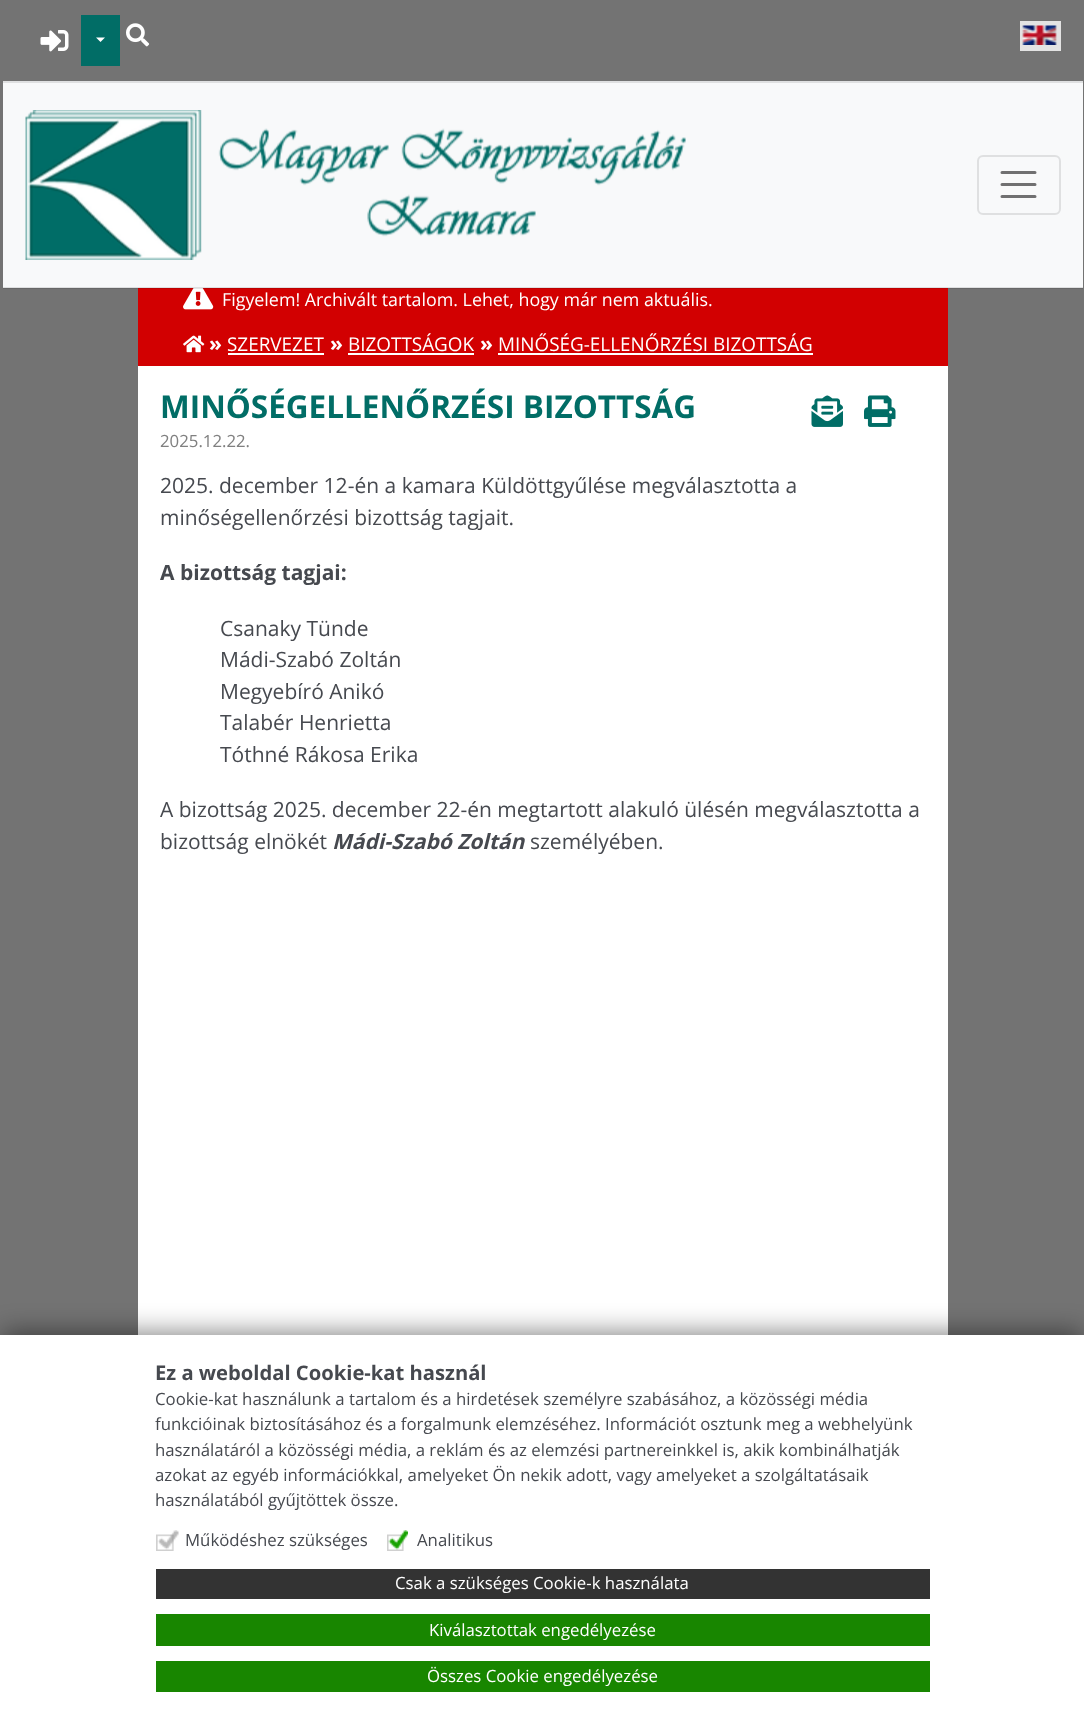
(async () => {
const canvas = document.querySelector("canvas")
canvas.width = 1084
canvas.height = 1722
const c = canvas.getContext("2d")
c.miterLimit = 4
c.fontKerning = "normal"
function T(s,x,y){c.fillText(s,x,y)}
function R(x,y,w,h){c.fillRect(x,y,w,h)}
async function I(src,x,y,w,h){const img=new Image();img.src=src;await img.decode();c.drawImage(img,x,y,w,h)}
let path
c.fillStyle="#737373"
R(0,0,1084,1722)
c.fillStyle="#fff"
R(138,366,810,969)
await I("1.png",40,30,29,22)
c.fillStyle="#016d66"
R(81,15,39,51)
c.fillStyle="#fff"
path = new Path2D("M96 37.5h9l-4.5 4.5z")
c.fill(path)
await I("2.png",126,23,24,24)
c.fillStyle="#e3e3e3"
R(1020,21,41,30)
await I("3.png",1022,25,35,20)
c.fillStyle="#f8f9fa"
R(3,83,1080,205)
c.fillStyle="#dfe0e1"
R(3,81,1080,2)
c.fillStyle="#d20001"
R(138,288,810,78)
await I("5.png",183,288,31,22)
c.fillStyle="#0000001a"
R(3,287,1080,2)
await I("4.png",25,110,661,150)
c.beginPath()
c.roundRect(978,156,82,58,5)
c.strokeStyle="#dfe0e1"
c.lineWidth=2
c.stroke()
path = new Path2D("M1002 172.5h33m-33 12h33m-33 12h33")
c.strokeStyle="#707071"
c.lineWidth=3
c.lineCap="round"
c.stroke(path)
c.font="17.85px Open Sans"
c.fillStyle="#fff"
T("Figyelem! Archivált tartalom. Lehet, hogy már nem aktuális.",222,306)
await I("6.png",183,335,22,18)
c.font="bold 21px Open Sans"
T("»",209,351)
c.font="18.9px Open Sans"
T("SZERVEZET",227,351)
R(228,353,96,2)
c.font="bold 21px Open Sans"
T("»",330,351)
c.font="18.9px Open Sans"
T("BIZOTTSÁGOK",348,351)
R(348,353,126,2)
c.font="bold 21px Open Sans"
T("»",480,351)
c.font="18.9px Open Sans"
T("MINŐSÉG-ELLENŐRZÉSI BIZOTTSÁG",498,351)
R(498,353,315,2)
c.font="bold 31.5px Open Sans"
c.fillStyle="#016d66"
T("MINŐSÉGELLENŐRZÉSI BIZOTTSÁG",160,418)
await I("7.png",811,395,32,32)
await I("8.png",864,395,32,32)
c.font="16.8px Open Sans"
c.fillStyle="#808080"
T("2025.12.22.",160,447)
c.font="21px Open Sans"
c.fillStyle="#46494f"
T("2025. december 12-én a kamara Küldöttgyűlése megválasztotta a",160,493)
T("minőségellenőrzési bizottság tagjait.",160,525)
c.font="bold 21px Open Sans"
T("A bizottság tagjai:",160,580)
c.font="21px Open Sans"
T("Csanaky Tünde",220,636)
T("Mádi-Szabó Zoltán",220,667)
T("Megyebíró Anikó",220,699)
T("Talabér Henrietta",220,730)
T("Tóthné Rákosa Erika",220,762)
T("A bizottság 2025. december 22-én megtartott alakuló ülésén megválasztotta a",160,817)
T("bizottság elnökét",160,849)
c.font="italic bold 21px Open Sans"
T("Mádi-Szabó Zoltán",332,849)
c.font="21px Open Sans"
T("személyében.",530,849)
c.fillStyle="#00000078"
c.filter="blur(13px)"
c.beginPath()
c.rect(3,1332,1079,381)
c.fill()
c.filter="none"
c.fillStyle="#fff"
R(0,1335,1084,387)
c.font="bold 20.2px Open Sans"
c.fillStyle="#46494f"
T("Ez a weboldal Cookie-kat használ",155,1380)
c.font="16.8px Open Sans"
T("Cookie-kat használunk a tartalom és a hirdetések személyre szabásához, a közösségi média",155,1405)
T("funkcióinak biztosításához és a forgalmunk elemzéséhez. Információt osztunk meg a webhelyünk",155,1430)
T("használatáról a közösségi média, a reklám és az elemzési partnereinkkel is, akik kombinálhatják",155,1456)
T("azokat az egyéb információkkal, amelyeket Ön nekik adott, vagy amelyeket a szolgáltatásaik",155,1481)
T("használatából gyűjtöttek össze.",155,1506)
await I("9.png",156,1530,23,21)
T("Működéshez szükséges",185,1546)
await I("10.png",387,1530,21,21)
T("Analitikus",417,1546)
c.fillStyle="#333"
R(156,1569,774,30)
c.fillStyle="#fff"
T("Csak a szükséges Cookie-k használata",395,1589)
c.fillStyle="#188600"
R(156,1614,774,32)
c.fillStyle="#fff"
T("Kiválasztottak engedélyezése",429,1636)
c.fillStyle="#188600"
R(156,1661,774,31)
c.fillStyle="#fff"
T("Összes Cookie engedélyezése",427,1682)
})()
